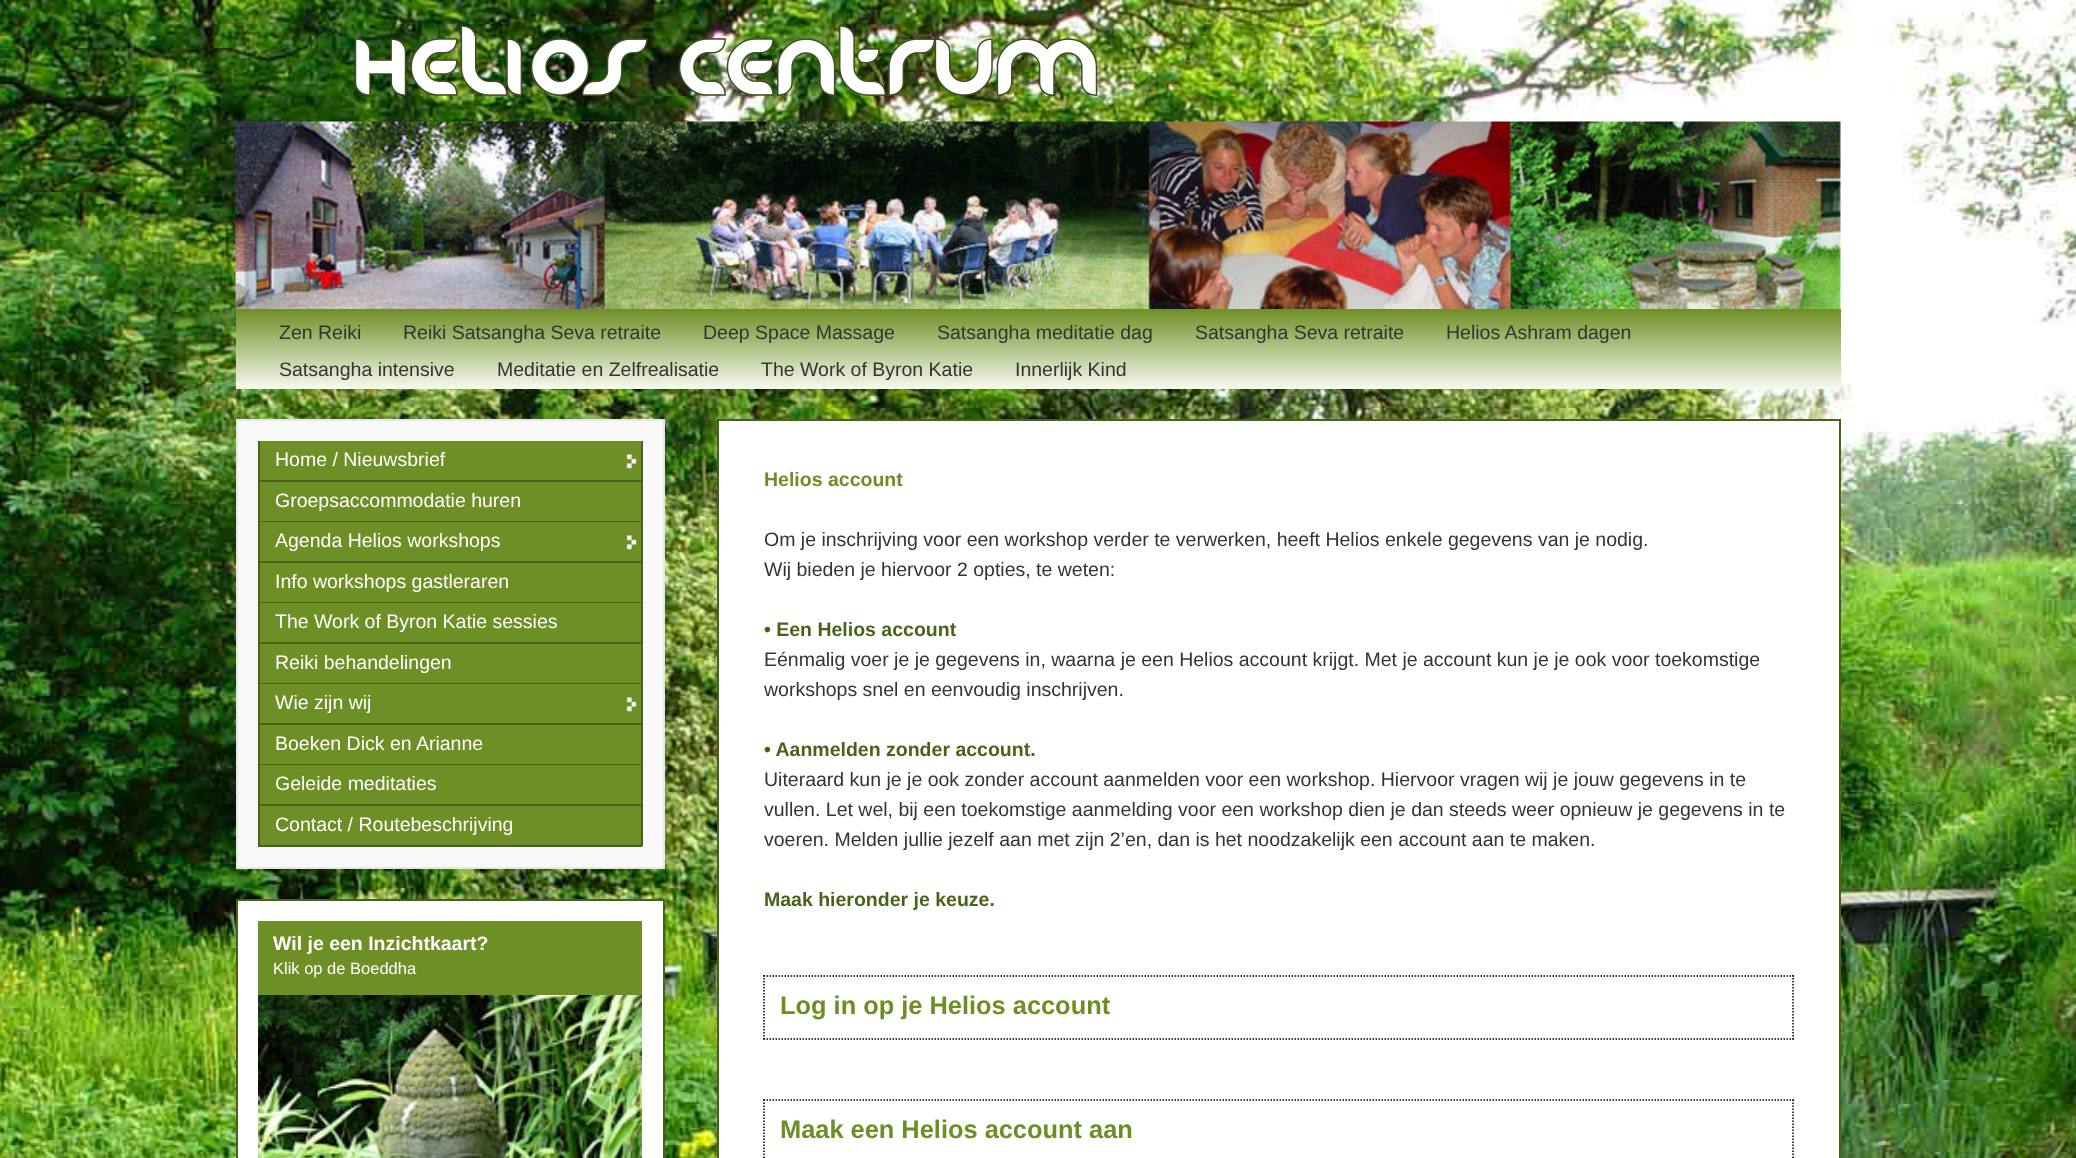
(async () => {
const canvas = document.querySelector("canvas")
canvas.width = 2076
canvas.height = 1158
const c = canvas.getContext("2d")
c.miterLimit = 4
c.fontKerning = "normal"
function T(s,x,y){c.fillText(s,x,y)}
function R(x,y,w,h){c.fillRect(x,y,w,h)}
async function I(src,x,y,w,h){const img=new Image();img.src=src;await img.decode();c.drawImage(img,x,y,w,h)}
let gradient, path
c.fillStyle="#fff"
R(0,0,2076,1158)
await I("1.png",0,0,2076,1158)
await I("2.png",354,25,744,71)
await I("3.png",235,121,1606,188)
gradient = c.createLinearGradient(1038,309,1038,389)
gradient.addColorStop(0,"#6e8f26")
gradient.addColorStop(1,"#f7faef")
c.fillStyle = gradient
R(236,309,1605,80)
c.font="19.5px Liberation Sans"
c.fillStyle="#333"
T("Zen Reiki",279,339)
T("Reiki Satsangha Seva retraite",403,339)
T("Deep Space Massage",703,339)
T("Satsangha meditatie dag",937,339)
T("Satsangha Seva retraite",1195,339)
T("Helios Ashram dagen",1446,339)
T("Satsangha intensive",279,376)
T("Meditatie en Zelfrealisatie",497,376)
T("The Work of Byron Katie",761,376)
T("Innerlijk Kind",1015,376)
c.fillStyle="#f8f8f8"
c.beginPath()
c.rect(237,420,427,448)
c.fill()
c.strokeStyle="#e7e7e7"
c.lineWidth=2
c.stroke()
c.fillStyle="#6e8f26"
R(260,441,381,39)
c.fillStyle="#496118"
R(641,441,2,405)
R(258,480,384,2)
R(258,441,2,41)
await I("4.png",626,454,11,15)
c.fillStyle="#fff"
T("Home / Nieuwsbrief",275,466)
c.fillStyle="#6e8f26"
R(260,482,381,39)
c.fillStyle="#496118"
R(258,521,384,1)
R(258,482,2,40)
c.fillStyle="#fff"
T("Groepsaccommodatie huren",275,507)
c.fillStyle="#6e8f26"
R(260,522,381,39)
c.fillStyle="#496118"
R(258,561,384,2)
R(258,522,2,41)
await I("4.png",626,535,11,15)
c.fillStyle="#fff"
T("Agenda Helios workshops",275,547)
c.fillStyle="#6e8f26"
R(260,563,381,39)
c.fillStyle="#496118"
R(258,602,384,1)
R(258,563,2,40)
c.fillStyle="#fff"
T("Info workshops gastleraren",275,588)
c.fillStyle="#6e8f26"
R(260,603,381,39)
c.fillStyle="#496118"
R(258,642,384,2)
R(258,603,2,41)
c.fillStyle="#fff"
T("The Work of Byron Katie sessies",275,628)
c.fillStyle="#6e8f26"
R(260,644,381,39)
c.fillStyle="#496118"
R(258,683,384,1)
R(258,644,2,40)
c.fillStyle="#fff"
T("Reiki behandelingen",275,669)
c.fillStyle="#6e8f26"
R(260,684,381,39)
c.fillStyle="#496118"
R(258,723,384,2)
R(258,684,2,41)
await I("4.png",626,697,11,15)
c.fillStyle="#fff"
T("Wie zijn wij",275,709)
c.fillStyle="#6e8f26"
R(260,725,381,39)
c.fillStyle="#496118"
R(258,764,384,1)
R(258,725,2,40)
c.fillStyle="#fff"
T("Boeken Dick en Arianne",275,750)
c.fillStyle="#6e8f26"
R(260,765,381,39)
c.fillStyle="#496118"
R(258,804,384,2)
R(258,765,2,41)
c.fillStyle="#fff"
T("Geleide meditaties",275,790)
c.fillStyle="#6e8f26"
R(260,806,381,39)
c.fillStyle="#496118"
R(258,845,384,2)
R(258,806,2,40)
c.fillStyle="#fff"
T("Contact / Routebeschrijving",275,831)
c.beginPath()
c.rect(237,900,427,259)
c.fill()
c.strokeStyle="#496118"
c.stroke()
c.fillStyle="#6e8f26"
R(258,921,384,74)
c.font="bold 19.5px Liberation Sans"
c.fillStyle="#fff"
T("Wil je een Inzichtkaart?",273,950)
c.font="16.5px Liberation Sans"
T("Klik op de Boeddha",273,974)
await I("5.png",258,995,384,163)
c.beginPath()
c.rect(718,420,1122,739)
c.fill()
c.stroke()
c.font="bold 19.5px Liberation Sans"
c.fillStyle="#6c8e23"
T("Helios account",764,486)
c.font="19.5px Liberation Sans"
c.fillStyle="#333"
T("Om je inschrijving voor een workshop verder te verwerken, heeft Helios enkele gegevens van je nodig.",764,546)
T("Wij bieden je hiervoor 2 opties, te weten:",764,576)
c.font="bold 19.5px Liberation Sans"
c.fillStyle="#496118"
T("• Een Helios account",764,636)
c.font="19.5px Liberation Sans"
c.fillStyle="#333"
T("Eénmalig voer je je gegevens in, waarna je een Helios account krijgt. Met je account kun je je ook voor toekomstige",764,666)
T("workshops snel en eenvoudig inschrijven.",764,696)
c.font="bold 19.5px Liberation Sans"
c.fillStyle="#496118"
T("• Aanmelden zonder account.",764,756)
c.font="19.5px Liberation Sans"
c.fillStyle="#333"
T("Uiteraard kun je je ook zonder account aanmelden voor een workshop. Hiervoor vragen wij je jouw gegevens in te",764,786)
T("vullen. Let wel, bij een toekomstige aanmelding voor een workshop dien je dan steeds weer opnieuw je gegevens in te",764,816)
T("voeren. Melden jullie jezelf aan met zijn 2’en, dan is het noodzakelijk een account aan te maken.",764,846)
c.font="bold 19.5px Liberation Sans"
c.fillStyle="#496118"
T("Maak hieronder je keuze.",764,906)
path = new Path2D("M763.5 976h1030.5")
c.strokeStyle="#000"
c.lineWidth=1.5
c.setLineDash([1.5,1.5])
c.stroke(path)
path = new Path2D("M1793 975v64.5")
c.stroke(path)
path = new Path2D("M763.5 1039h1030.5")
c.stroke(path)
path = new Path2D("M764 975v64.5")
c.stroke(path)
c.font="bold 25.4px Liberation Sans"
c.fillStyle="#6c8e23"
T("Log in op je Helios account",780,1014)
path = new Path2D("M763.5 1100h1030.5")
c.stroke(path)
path = new Path2D("M1793 1099.5v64.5")
c.stroke(path)
path = new Path2D("M764 1099.5v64.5")
c.stroke(path)
T("Maak een Helios account aan",780,1138)
})()
